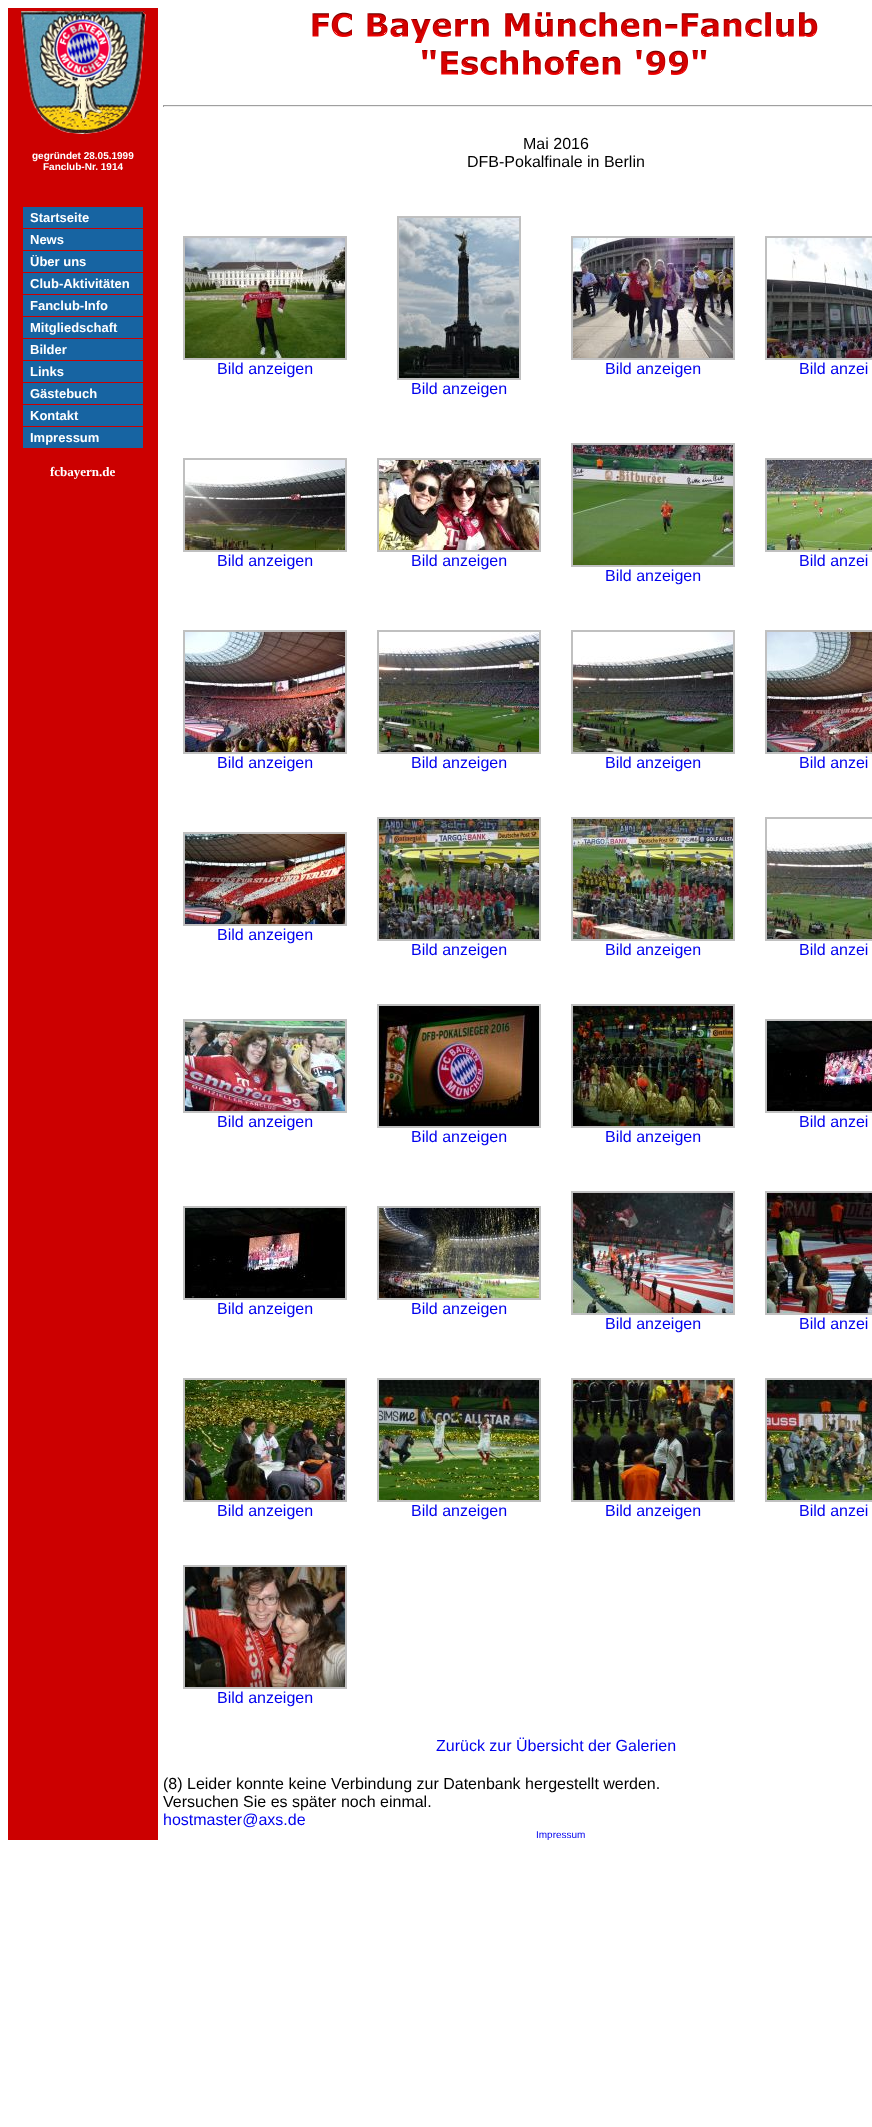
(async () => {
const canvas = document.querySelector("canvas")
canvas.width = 872
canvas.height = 2127
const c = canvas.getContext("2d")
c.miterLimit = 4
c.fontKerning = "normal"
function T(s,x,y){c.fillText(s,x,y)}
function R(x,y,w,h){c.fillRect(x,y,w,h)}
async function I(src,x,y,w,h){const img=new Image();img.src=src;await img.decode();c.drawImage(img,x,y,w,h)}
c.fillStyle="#fff"
R(0,0,872,2127)
await I("1.png",312,12,506,63)
c.fillStyle="#9f9f9f"
R(163,105,709,1)
c.fillStyle="#eee"
R(163,106,709,1)
c.fillStyle="#9f9f9f"
R(163,105,1,2)
c.fillStyle="#c00"
R(8,8,150,1832)
await I("2.png",21,11,125,123)
c.font="bold 10px Liberation Sans"
c.fillStyle="#fff"
T("gegründet 28.05.1999",32,159)
T("Fanclub-Nr. 1914",43,170)
c.fillStyle="#1764a2"
R(23,207,120,21)
c.font="bold 13px Liberation Sans"
c.fillStyle="#fff"
T("Startseite",30,222)
c.fillStyle="#1764a2"
R(23,229,120,21)
c.fillStyle="#fff"
T("News",30,244)
c.fillStyle="#1764a2"
R(23,251,120,21)
c.fillStyle="#fff"
T("Über uns",30,266)
c.fillStyle="#1764a2"
R(23,273,120,21)
c.fillStyle="#fff"
T("Club-Aktivitäten",30,288)
c.fillStyle="#1764a2"
R(23,295,120,21)
c.fillStyle="#fff"
T("Fanclub-Info",30,310)
c.fillStyle="#1764a2"
R(23,317,120,21)
c.fillStyle="#fff"
T("Mitgliedschaft",30,332)
c.fillStyle="#1764a2"
R(23,339,120,21)
c.fillStyle="#fff"
T("Bilder",30,354)
c.fillStyle="#1764a2"
R(23,361,120,21)
c.fillStyle="#fff"
T("Links",30,376)
c.fillStyle="#1764a2"
R(23,383,120,21)
c.fillStyle="#fff"
T("Gästebuch",30,398)
c.fillStyle="#1764a2"
R(23,405,120,21)
c.fillStyle="#fff"
T("Kontakt",30,420)
c.fillStyle="#1764a2"
R(23,427,120,21)
c.fillStyle="#fff"
T("Impressum",30,442)
c.font="bold 13px Liberation Serif"
T("fcbayern.de",50,476)
c.font="16px Liberation Sans"
c.fillStyle="#000"
T("Mai 2016",523,149)
T("DFB-Pokalfinale in Berlin",467,167)
c.strokeStyle="#c0c0c0"
c.lineWidth=2
c.strokeRect(184,237,162,122)
await I("3.png",185,238,160,120)
c.fillStyle="#00e"
T("Bild anzeigen",217,374)
c.strokeRect(572,237,162,122)
await I("4.png",573,238,160,120)
T("Bild anzeigen",605,374)
c.strokeRect(766,237,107,122)
await I("5.png",767,238,105,120)
T("Bild anzei",799,374)
c.strokeRect(398,217,122,162)
await I("6.png",399,218,120,160)
T("Bild anzeigen",411,394)
c.strokeRect(184,459,162,92)
await I("7.png",185,460,160,90)
T("Bild anzeigen",217,566)
c.strokeRect(378,459,162,92)
await I("8.png",379,460,160,90)
T("Bild anzeigen",411,566)
c.strokeRect(766,459,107,92)
await I("9.png",767,460,105,90)
T("Bild anzei",799,566)
c.strokeRect(572,444,162,122)
await I("10.png",573,445,160,120)
T("Bild anzeigen",605,581)
c.strokeRect(184,631,162,122)
await I("11.png",185,632,160,120)
T("Bild anzeigen",217,768)
c.strokeRect(378,631,162,122)
await I("12.png",379,632,160,120)
T("Bild anzeigen",411,768)
c.strokeRect(572,631,162,122)
await I("13.png",573,632,160,120)
T("Bild anzeigen",605,768)
c.strokeRect(766,631,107,122)
await I("14.png",767,632,105,120)
T("Bild anzei",799,768)
c.strokeRect(184,833,162,92)
await I("15.png",185,834,160,90)
T("Bild anzeigen",217,940)
c.strokeRect(378,818,162,122)
await I("16.png",379,819,160,120)
T("Bild anzeigen",411,955)
c.strokeRect(572,818,162,122)
await I("17.png",573,819,160,120)
T("Bild anzeigen",605,955)
c.strokeRect(766,818,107,122)
await I("18.png",767,841,105,98)
T("Bild anzei",799,955)
c.strokeRect(184,1020,162,92)
await I("19.png",185,1021,160,90)
T("Bild anzeigen",217,1127)
c.strokeRect(766,1020,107,92)
await I("20.png",767,1021,105,90)
T("Bild anzei",799,1127)
c.strokeRect(378,1005,162,122)
await I("21.png",379,1006,160,120)
T("Bild anzeigen",411,1142)
c.strokeRect(572,1005,162,122)
await I("22.png",573,1006,160,120)
T("Bild anzeigen",605,1142)
c.strokeRect(184,1207,162,92)
await I("23.png",185,1208,160,90)
T("Bild anzeigen",217,1314)
c.strokeRect(378,1207,162,92)
await I("24.png",379,1208,160,90)
T("Bild anzeigen",411,1314)
c.strokeRect(572,1192,162,122)
await I("25.png",573,1193,160,120)
T("Bild anzeigen",605,1329)
c.strokeRect(766,1192,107,122)
await I("26.png",767,1193,105,120)
T("Bild anzei",799,1329)
c.strokeRect(184,1379,162,122)
await I("27.png",185,1380,160,120)
T("Bild anzeigen",217,1516)
c.strokeRect(378,1379,162,122)
await I("28.png",379,1380,160,120)
T("Bild anzeigen",411,1516)
c.strokeRect(572,1379,162,122)
await I("29.png",573,1380,160,120)
T("Bild anzeigen",605,1516)
c.strokeRect(766,1379,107,122)
await I("30.png",767,1380,105,120)
T("Bild anzei",799,1516)
c.strokeRect(184,1566,162,122)
await I("31.png",185,1567,160,120)
T("Bild anzeigen",217,1703)
T("Zurück zur Übersicht der Galerien",436,1751)
c.fillStyle="#000"
T("(8) Leider konnte keine Verbindung zur Datenbank hergestellt werden.",163,1789)
T("Versuchen Sie es später noch einmal.",163,1807)
c.fillStyle="#00e"
T("hostmaster@axs.de",163,1825)
c.font="10px Liberation Sans"
T("Impressum",536,1838)
})()
